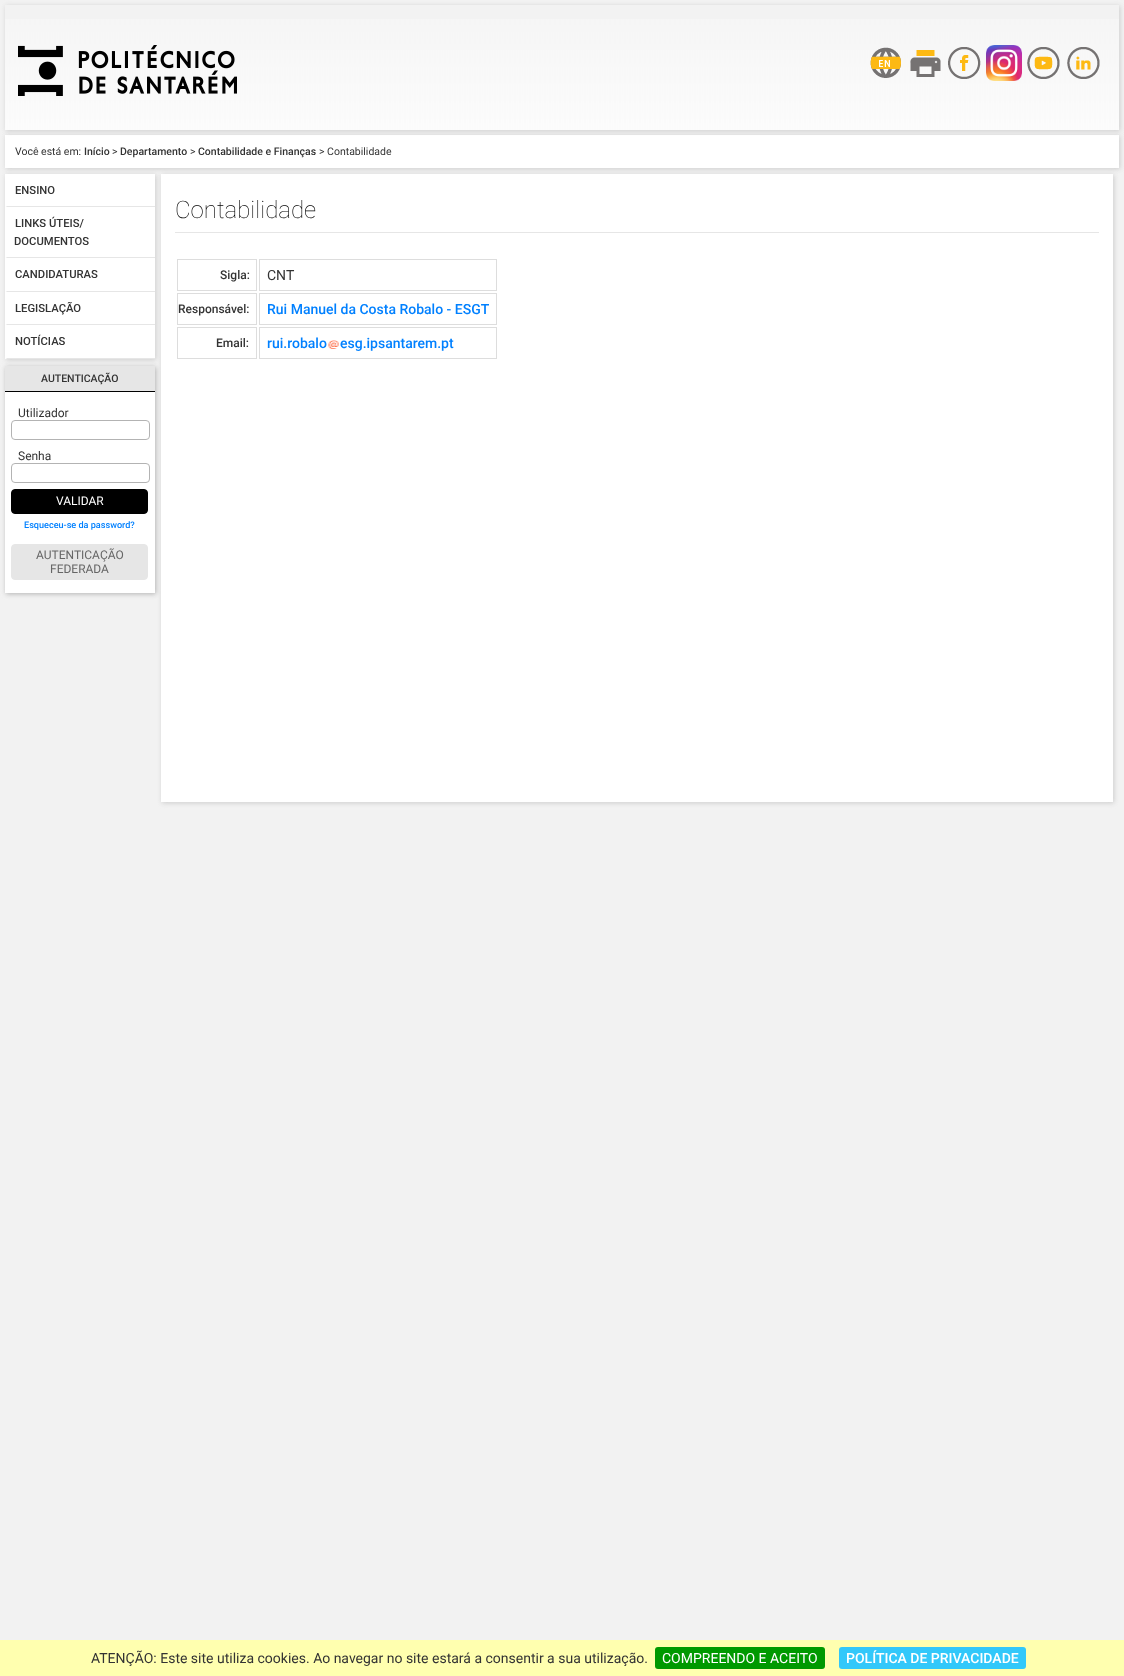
(async () => {
const canvas = document.querySelector("canvas")
canvas.width = 1124
canvas.height = 1676
const c = canvas.getContext("2d")
c.miterLimit = 4
c.fontKerning = "normal"
function T(s,x,y){c.fillText(s,x,y)}
function R(x,y,w,h){c.fillRect(x,y,w,h)}
function Q(x,y,w,h,r){c.beginPath();c.roundRect(x,y,w,h,r);c.fill()}
async function I(src,x,y,w,h){const img=new Image();img.src=src;await img.decode();c.drawImage(img,x,y,w,h)}
let path
c.fillStyle="#f2f2f2"
R(0,0,1124,1676)
c.fillStyle="#ccc"
c.filter="blur(2.5px)"
c.beginPath()
c.rect(6,136,1114,33)
c.fill()
c.filter="none"
c.fillStyle="#fff"
R(5,135,1114,33)
c.save()
path = new Path2D("M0 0h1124v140h-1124zm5 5h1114v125h-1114z")
c.clip(path,"evenodd")
c.fillStyle="#ccc"
c.filter="blur(2.5px)"
c.beginPath()
c.rect(6,6,1114,125)
c.fill()
c.filter="none"
c.restore()
await I("1.png",5,19,1114,111)
await I("2.png",18,45,219,51)
await I("3.png",870,47,31,31)
await I("4.png",910,50,31,27)
await I("5.png",948,47,33,32)
await I("6.png",986,45,36,36)
await I("7.png",1027,47,33,32)
await I("8.png",1067,47,33,32)
c.font="10.5px Roboto"
c.fillStyle="#333"
T("Você está em:",15,155)
c.font="500 10.5px Roboto"
T("Início",84,155)
c.font="10.5px Roboto"
T(">",112,155)
c.font="500 10.5px Roboto"
T("Departamento",120,155)
c.font="10.5px Roboto"
T(">",190,155)
c.font="500 10.5px Roboto"
T("Contabilidade e Finanças",198,155)
c.font="10.5px Roboto"
T("> Contabilidade",319,155)
c.fillStyle="#ccc"
c.filter="blur(2.5px)"
c.beginPath()
c.rect(6,175,150,185)
c.fill()
c.filter="none"
c.fillStyle="#fff"
R(5,174,150,185)
c.fillStyle="#e6e6e6"
path = new Path2D("M155 207h-150l2-1h148z")
c.fill(path)
c.fillStyle="#fff"
path = new Path2D("M5 207v-33h2v32z")
c.fill(path)
c.font="500 11.25px Roboto"
c.fillStyle="#333"
T("ENSINO",15,194)
c.fillStyle="#e6e6e6"
path = new Path2D("M155 258h-150l2-1h148z")
c.fill(path)
c.fillStyle="#fff"
path = new Path2D("M5 258v-51h2v50z")
c.fill(path)
c.fillStyle="#333"
T("LINKS ÚTEIS/",15,227)
T("DOCUMENTOS",14,245)
c.fillStyle="#e6e6e6"
path = new Path2D("M155 292h-150l2-1h148z")
c.fill(path)
c.fillStyle="#fff"
path = new Path2D("M5 292v-34h2v33z")
c.fill(path)
c.fillStyle="#333"
T("CANDIDATURAS",15,278)
c.fillStyle="#e6e6e6"
path = new Path2D("M155 325h-150l2-1h148z")
c.fill(path)
c.fillStyle="#fff"
path = new Path2D("M5 325v-33h2v32z")
c.fill(path)
c.fillStyle="#333"
T("LEGISLAÇÃO",15,312)
c.fillStyle="#e6e6e6"
path = new Path2D("M155 359h-150l2-1h148z")
c.fill(path)
c.fillStyle="#fff"
path = new Path2D("M5 359v-34h2v33z")
c.fill(path)
c.fillStyle="#333"
T("NOTÍCIAS",15,345)
c.fillStyle="#b3b3b3"
c.filter="blur(2.5px)"
c.beginPath()
c.rect(6,367,150,227)
c.fill()
c.filter="none"
c.fillStyle="#fff"
R(5,392,150,201)
c.fillStyle="#e6e6e6"
R(5,366,150,25)
c.fillStyle="#000"
R(5,391,150,1)
c.font="500 10.5px Roboto"
c.fillStyle="#333"
T("AUTENTICAÇÃO",41,382)
c.font="12px Roboto"
T("Utilizador",18,417)
c.beginPath()
c.roundRect(11.5,420.5,138,19,3.5)
c.strokeStyle="#b3b3b3"
c.stroke()
T("Senha",18,460)
c.beginPath()
c.roundRect(11.5,463.5,138,19,3.5)
c.stroke()
c.fillStyle="#000"
c.beginPath()
c.roundRect(11.5,489.5,136,24,3.5)
c.fill()
c.strokeStyle="#000"
c.stroke()
c.fillStyle="#fff"
T("VALIDAR",56,505)
c.font="500 9.1px Roboto"
c.fillStyle="#0080ff"
T("Esqueceu-se da password?",24,528)
c.fillStyle="#e6e6e6"
c.beginPath()
c.roundRect(11.5,544.5,136,35,3.5)
c.fill()
c.strokeStyle="#e6e6e6"
c.stroke()
c.font="12px Roboto"
c.fillStyle="#666"
T("AUTENTICAÇÃO",36,559)
T("FEDERADA",50,573)
c.fillStyle="#ccc"
c.filter="blur(2.5px)"
c.beginPath()
c.rect(162,175,952,628)
c.fill()
c.filter="none"
c.fillStyle="#fff"
R(161,174,952,628)
c.fillStyle="#e6e6e6"
R(175,232,924,1)
c.font="100 24px Roboto"
c.fillStyle="#000"
T("Contabilidade",175,218)
c.strokeStyle="#ddd"
c.strokeRect(177.5,259.5,79,31)
c.font="500 12px Roboto"
c.fillStyle="#333"
T("Sigla:",220,279)
c.strokeRect(259.5,259.5,237,31)
c.font="14px Roboto"
T("CNT",267,280)
c.strokeRect(177.5,293.5,79,31)
c.font="500 12px Roboto"
T("Responsável:",178,313)
c.strokeRect(259.5,293.5,237,31)
c.font="500 14px Roboto"
c.fillStyle="#0080ff"
T("Rui Manuel da Costa Robalo - ESGT",267,314)
c.strokeRect(177.5,327.5,79,31)
c.font="500 12px Roboto"
c.fillStyle="#333"
T("Email:",216,347)
c.strokeRect(259.5,327.5,237,31)
c.font="500 14px Roboto"
c.fillStyle="#0080ff"
T("rui.robalo",267,348)
await I("9.png",328,340,11,9)
T("esg.ipsantarem.pt",340,348)
c.fillStyle="#ffffaf"
R(0,1640,1124,36)
c.font="14px Roboto"
c.fillStyle="#333"
T("ATENÇÃO: Este site utiliza cookies. Ao navegar no site estará a consentir a sua utilização.",91,1663)
c.fillStyle="#090"
Q(655,1647,170,22,3)
c.fillStyle="#fff"
T("COMPREENDO E ACEITO",662,1663)
c.fillStyle="#32c8fa"
Q(839,1647,187,22,3)
c.font="500 14px Roboto"
c.fillStyle="#fff"
T("POLÍTICA DE PRIVACIDADE",846,1663)
})()
